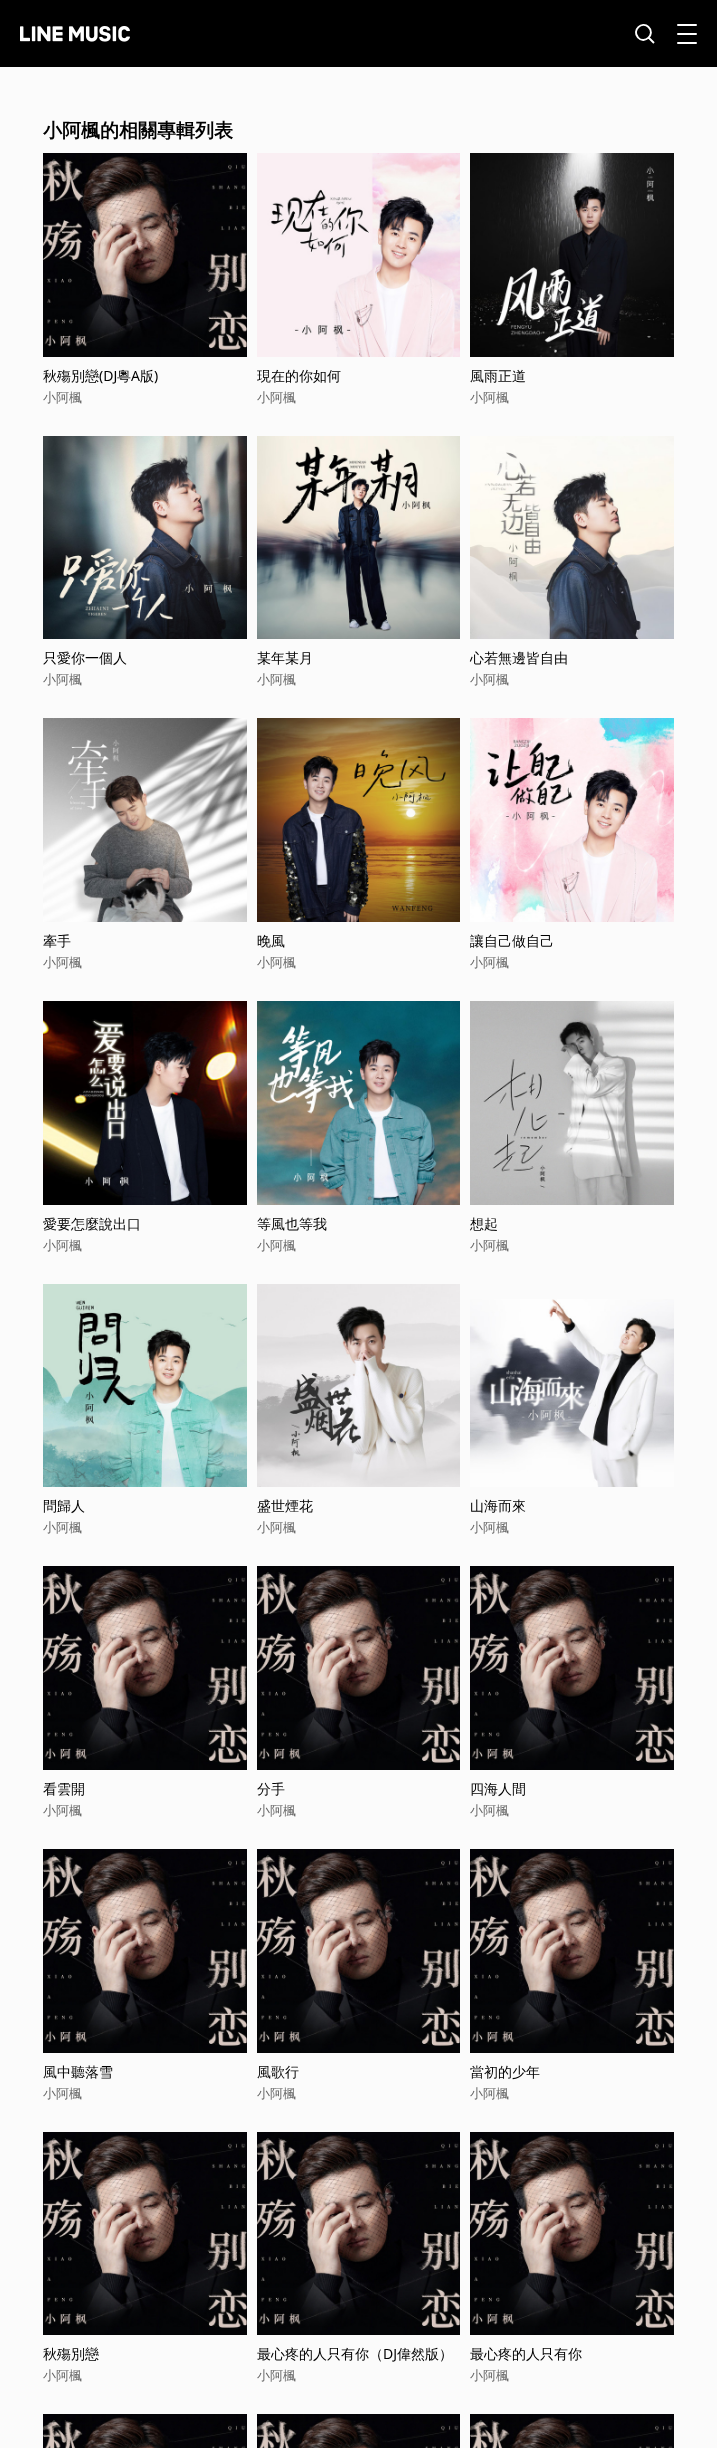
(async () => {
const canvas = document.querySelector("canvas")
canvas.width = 717
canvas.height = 2448
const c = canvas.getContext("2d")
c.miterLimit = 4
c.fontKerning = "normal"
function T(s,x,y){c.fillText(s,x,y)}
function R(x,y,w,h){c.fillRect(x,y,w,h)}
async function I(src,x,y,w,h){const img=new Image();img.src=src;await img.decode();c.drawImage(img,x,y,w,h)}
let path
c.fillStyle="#fbfbfb"
R(0,0,717,2448)
c.fillStyle="#000"
R(0,0,717,67)
await I("1.png",20,26,110,16)
path = new Path2D("M648.5 27c7.5 7-4 18-10.5 10.5c-6.5-7 4-17 10.5-10.5zm.5 11l5 5")
c.strokeStyle="#fff"
c.lineWidth=1.9
c.stroke(path)
c.fillStyle="#fff"
R(678,24,18,2)
R(678,33,18,2)
R(678,42,18,2)
path = new Path2D("M678 25v18.2m18-18.2v18.2")
c.lineWidth=2
c.lineCap="round"
c.setLineDash([0,9])
c.stroke(path)
c.font="bold 19px WenQuanYi Zen Hei"
c.fillStyle="#000"
T("小阿楓的相關專輯列表",43,137)
await I("2.png",43,153,204,204)
c.font="500 14px WenQuanYi Zen Hei"
T("秋殤別戀",43,381)
c.font="14px Noto Sans"
T("(DJ",99,381)
c.font="500 14px WenQuanYi Zen Hei"
T("粵",117,381)
c.font="14px Noto Sans"
T("A",131,381)
c.font="500 14px WenQuanYi Zen Hei"
T("版",140,381)
c.font="14px Noto Sans"
T(")",154,381)
c.font="500 13px WenQuanYi Zen Hei"
c.fillStyle="#666"
T("小阿楓",43,402)
await I("3.png",257,153,203,204)
c.save()
c.beginPath()
c.rect(257,367,203,17)
c.clip()
c.font="500 14px WenQuanYi Zen Hei"
c.fillStyle="#000"
T("現在的你如何",257,381)
c.restore()
T("小阿楓",257,402)
await I("4.png",470,153,204,204)
c.font="500 14px WenQuanYi Zen Hei"
c.fillStyle="#000"
T("風雨正道",470,381)
c.font="500 13px WenQuanYi Zen Hei"
c.fillStyle="#666"
T("小阿楓",470,402)
await I("5.png",43,436,204,203)
c.font="500 14px WenQuanYi Zen Hei"
c.fillStyle="#000"
T("只愛你一個人",43,663)
c.font="500 13px WenQuanYi Zen Hei"
c.fillStyle="#666"
T("小阿楓",43,684)
await I("6.png",257,436,203,203)
c.font="500 14px WenQuanYi Zen Hei"
c.fillStyle="#000"
T("某年某月",257,663)
c.font="500 13px WenQuanYi Zen Hei"
c.fillStyle="#666"
T("小阿楓",257,684)
await I("7.png",470,436,204,203)
c.font="500 14px WenQuanYi Zen Hei"
c.fillStyle="#000"
T("心若無邊皆自由",470,663)
c.font="500 13px WenQuanYi Zen Hei"
c.fillStyle="#666"
T("小阿楓",470,684)
await I("8.png",43,718,204,204)
c.font="500 14px WenQuanYi Zen Hei"
c.fillStyle="#000"
T("牽手",43,946)
c.font="500 13px WenQuanYi Zen Hei"
c.fillStyle="#666"
T("小阿楓",43,967)
await I("9.png",257,718,203,204)
c.font="500 14px WenQuanYi Zen Hei"
c.fillStyle="#000"
T("晚風",257,946)
c.font="500 13px WenQuanYi Zen Hei"
c.fillStyle="#666"
T("小阿楓",257,967)
await I("10.png",470,718,204,204)
c.font="500 14px WenQuanYi Zen Hei"
c.fillStyle="#000"
T("讓自己做自己",470,946)
c.font="500 13px WenQuanYi Zen Hei"
c.fillStyle="#666"
T("小阿楓",470,967)
await I("11.png",43,1001,204,204)
c.font="500 14px WenQuanYi Zen Hei"
c.fillStyle="#000"
T("愛要怎麼說出口",43,1229)
c.font="500 13px WenQuanYi Zen Hei"
c.fillStyle="#666"
T("小阿楓",43,1250)
await I("12.png",257,1001,203,204)
c.font="500 14px WenQuanYi Zen Hei"
c.fillStyle="#000"
T("等風也等我",257,1229)
c.font="500 13px WenQuanYi Zen Hei"
c.fillStyle="#666"
T("小阿楓",257,1250)
await I("13.png",470,1001,204,204)
c.font="500 14px WenQuanYi Zen Hei"
c.fillStyle="#000"
T("想起",470,1229)
c.font="500 13px WenQuanYi Zen Hei"
c.fillStyle="#666"
T("小阿楓",470,1250)
await I("14.png",43,1284,204,203)
c.font="500 14px WenQuanYi Zen Hei"
c.fillStyle="#000"
T("問歸人",43,1511)
c.font="500 13px WenQuanYi Zen Hei"
c.fillStyle="#666"
T("小阿楓",43,1532)
await I("15.png",257,1284,203,203)
c.font="500 14px WenQuanYi Zen Hei"
c.fillStyle="#000"
T("盛世煙花",257,1511)
c.font="500 13px WenQuanYi Zen Hei"
c.fillStyle="#666"
T("小阿楓",257,1532)
await I("16.png",470,1299,204,188)
c.font="500 14px WenQuanYi Zen Hei"
c.fillStyle="#000"
T("山海而來",470,1511)
c.font="500 13px WenQuanYi Zen Hei"
c.fillStyle="#666"
T("小阿楓",470,1532)
await I("17.png",43,1566,204,204)
c.font="500 14px WenQuanYi Zen Hei"
c.fillStyle="#000"
T("看雲開",43,1794)
c.font="500 13px WenQuanYi Zen Hei"
c.fillStyle="#666"
T("小阿楓",43,1815)
await I("18.png",257,1566,203,204)
c.font="500 14px WenQuanYi Zen Hei"
c.fillStyle="#000"
T("分手",257,1794)
c.font="500 13px WenQuanYi Zen Hei"
c.fillStyle="#666"
T("小阿楓",257,1815)
await I("19.png",470,1566,204,204)
c.font="500 14px WenQuanYi Zen Hei"
c.fillStyle="#000"
T("四海人間",470,1794)
c.font="500 13px WenQuanYi Zen Hei"
c.fillStyle="#666"
T("小阿楓",470,1815)
await I("20.png",43,1849,204,204)
c.font="500 14px WenQuanYi Zen Hei"
c.fillStyle="#000"
T("風中聽落雪",43,2077)
c.font="500 13px WenQuanYi Zen Hei"
c.fillStyle="#666"
T("小阿楓",43,2098)
await I("21.png",257,1849,203,204)
c.font="500 14px WenQuanYi Zen Hei"
c.fillStyle="#000"
T("風歌行",257,2077)
c.font="500 13px WenQuanYi Zen Hei"
c.fillStyle="#666"
T("小阿楓",257,2098)
await I("22.png",470,1849,204,204)
c.font="500 14px WenQuanYi Zen Hei"
c.fillStyle="#000"
T("當初的少年",470,2077)
c.font="500 13px WenQuanYi Zen Hei"
c.fillStyle="#666"
T("小阿楓",470,2098)
await I("23.png",43,2132,204,203)
c.font="500 14px WenQuanYi Zen Hei"
c.fillStyle="#000"
T("秋殤別戀",43,2359)
c.font="500 13px WenQuanYi Zen Hei"
c.fillStyle="#666"
T("小阿楓",43,2380)
await I("24.png",257,2132,203,203)
c.font="500 14px WenQuanYi Zen Hei"
c.fillStyle="#000"
T("最心疼的人只有你（",257,2359)
c.font="14px Noto Sans"
T("DJ",383,2359)
c.font="500 14px WenQuanYi Zen Hei"
T("偉然版）",397,2359)
c.font="500 13px WenQuanYi Zen Hei"
c.fillStyle="#666"
T("小阿楓",257,2380)
await I("25.png",470,2132,204,203)
c.font="500 14px WenQuanYi Zen Hei"
c.fillStyle="#000"
T("最心疼的人只有你",470,2359)
c.font="500 13px WenQuanYi Zen Hei"
c.fillStyle="#666"
T("小阿楓",470,2380)
await I("26.png",43,2414,204,34)
await I("27.png",257,2414,203,34)
await I("28.png",470,2414,204,34)
})()
